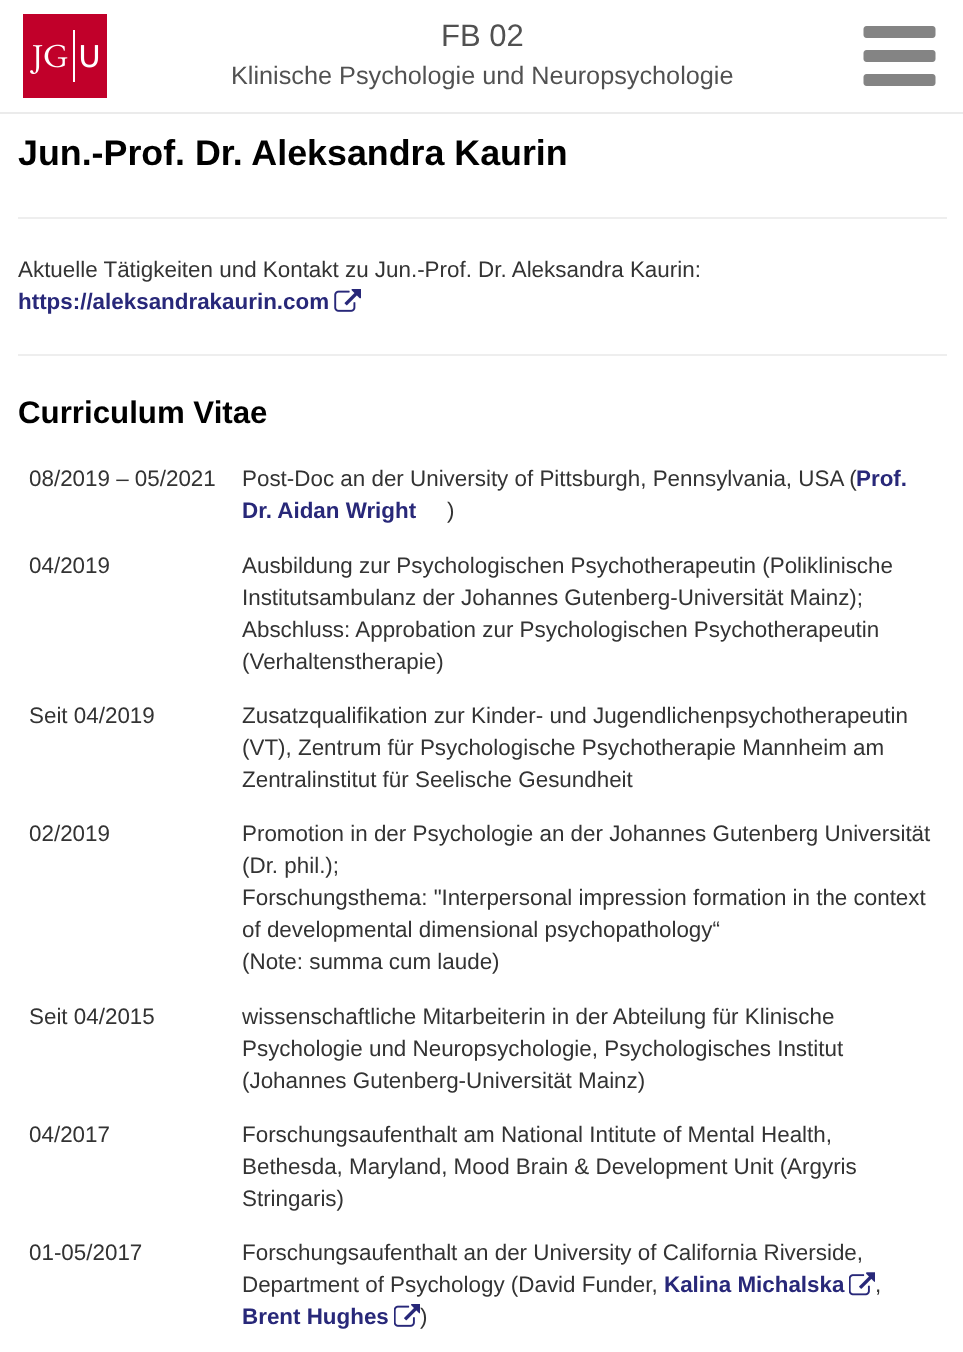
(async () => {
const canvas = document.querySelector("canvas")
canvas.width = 963
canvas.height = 1352
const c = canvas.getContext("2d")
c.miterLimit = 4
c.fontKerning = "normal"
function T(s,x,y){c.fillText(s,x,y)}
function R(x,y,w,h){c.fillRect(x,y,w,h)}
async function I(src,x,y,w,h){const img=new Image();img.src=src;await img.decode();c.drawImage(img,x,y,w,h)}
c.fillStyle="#fff"
R(0,0,963,1352)
c.fillStyle="#ebebeb"
R(0,112,963,2)
await I("1.png",23,14,84,84)
c.font="31px Liberation Sans"
c.fillStyle="#515151"
T("FB 02",441,46)
c.font="25.25px Liberation Sans"
T("Klinische Psychologie und Neuropsychologie",231,84)
await I("2.png",863,26,73,60)
c.font="bold 35.8px Liberation Sans"
c.fillStyle="#000"
T("Jun.-Prof. Dr. Aleksandra Kaurin",18,165)
c.fillStyle="#eee"
R(18,217,929,2)
c.font="22.4px Liberation Sans"
c.fillStyle="#333"
T("Aktuelle Tätigkeiten und Kontakt zu Jun.-Prof. Dr. Aleksandra Kaurin:",18,277)
c.font="bold 22.4px Liberation Sans"
c.fillStyle="#282879"
T("https://aleksandrakaurin.com",18,309)
await I("3.png",334,289,27,23)
c.fillStyle="#eee"
R(18,354,929,2)
c.font="bold 31.25px Liberation Sans"
c.fillStyle="#000"
T("Curriculum Vitae",18,423)
c.font="22.4px Liberation Sans"
c.fillStyle="#333"
T("08/2019 – 05/2021",29,486)
T("Post-Doc an der University of Pittsburgh, Pennsylvania, USA (",242,486)
c.font="bold 22.4px Liberation Sans"
c.fillStyle="#282879"
T("Prof.",856,486)
T("Dr. Aidan Wright",242,518)
c.font="22.4px Liberation Sans"
c.fillStyle="#333"
T(")",447,518)
T("04/2019",29,573)
T("Ausbildung zur Psychologischen Psychotherapeutin (Poliklinische",242,573)
T("Institutsambulanz der Johannes Gutenberg-Universität Mainz);",242,605)
T("Abschluss: Approbation zur Psychologischen Psychotherapeutin",242,637)
T("(Verhaltenstherapie)",242,669)
T("Seit 04/2019",29,723)
T("Zusatzqualifikation zur Kinder- und Jugendlichenpsychotherapeutin",242,723)
T("(VT), Zentrum für Psychologische Psychotherapie Mannheim am",242,755)
T("Zentralinstitut für Seelische Gesundheit",242,787)
T("02/2019",29,841)
T("Promotion in der Psychologie an der Johannes Gutenberg Universität",242,841)
T("(Dr. phil.);",242,873)
T("Forschungsthema: \"Interpersonal impression formation in the context",242,905)
T("of developmental dimensional psychopathology“",242,937)
T("(Note: summa cum laude)",242,969)
T("Seit 04/2015",29,1024)
T("wissenschaftliche Mitarbeiterin in der Abteilung für Klinische",242,1024)
T("Psychologie und Neuropsychologie, Psychologisches Institut",242,1056)
T("(Johannes Gutenberg-Universität Mainz)",242,1088)
T("04/2017",29,1142)
T("Forschungsaufenthalt am National Intitute of Mental Health,",242,1142)
T("Bethesda, Maryland, Mood Brain & Development Unit (Argyris",242,1174)
T("Stringaris)",242,1206)
T("01-05/2017",29,1260)
T("Forschungsaufenthalt an der University of California Riverside,",242,1260)
T("Department of Psychology (David Funder,",242,1292)
c.font="bold 22.4px Liberation Sans"
c.fillStyle="#282879"
T("Kalina Michalska",664,1292)
await I("4.png",849,1272,26,24)
c.font="22.4px Liberation Sans"
c.fillStyle="#333"
T(",",875,1292)
c.font="bold 22.4px Liberation Sans"
c.fillStyle="#282879"
T("Brent Hughes",242,1324)
await I("5.png",394,1304,26,23)
c.font="22.4px Liberation Sans"
c.fillStyle="#333"
T(")",420,1324)
})()
